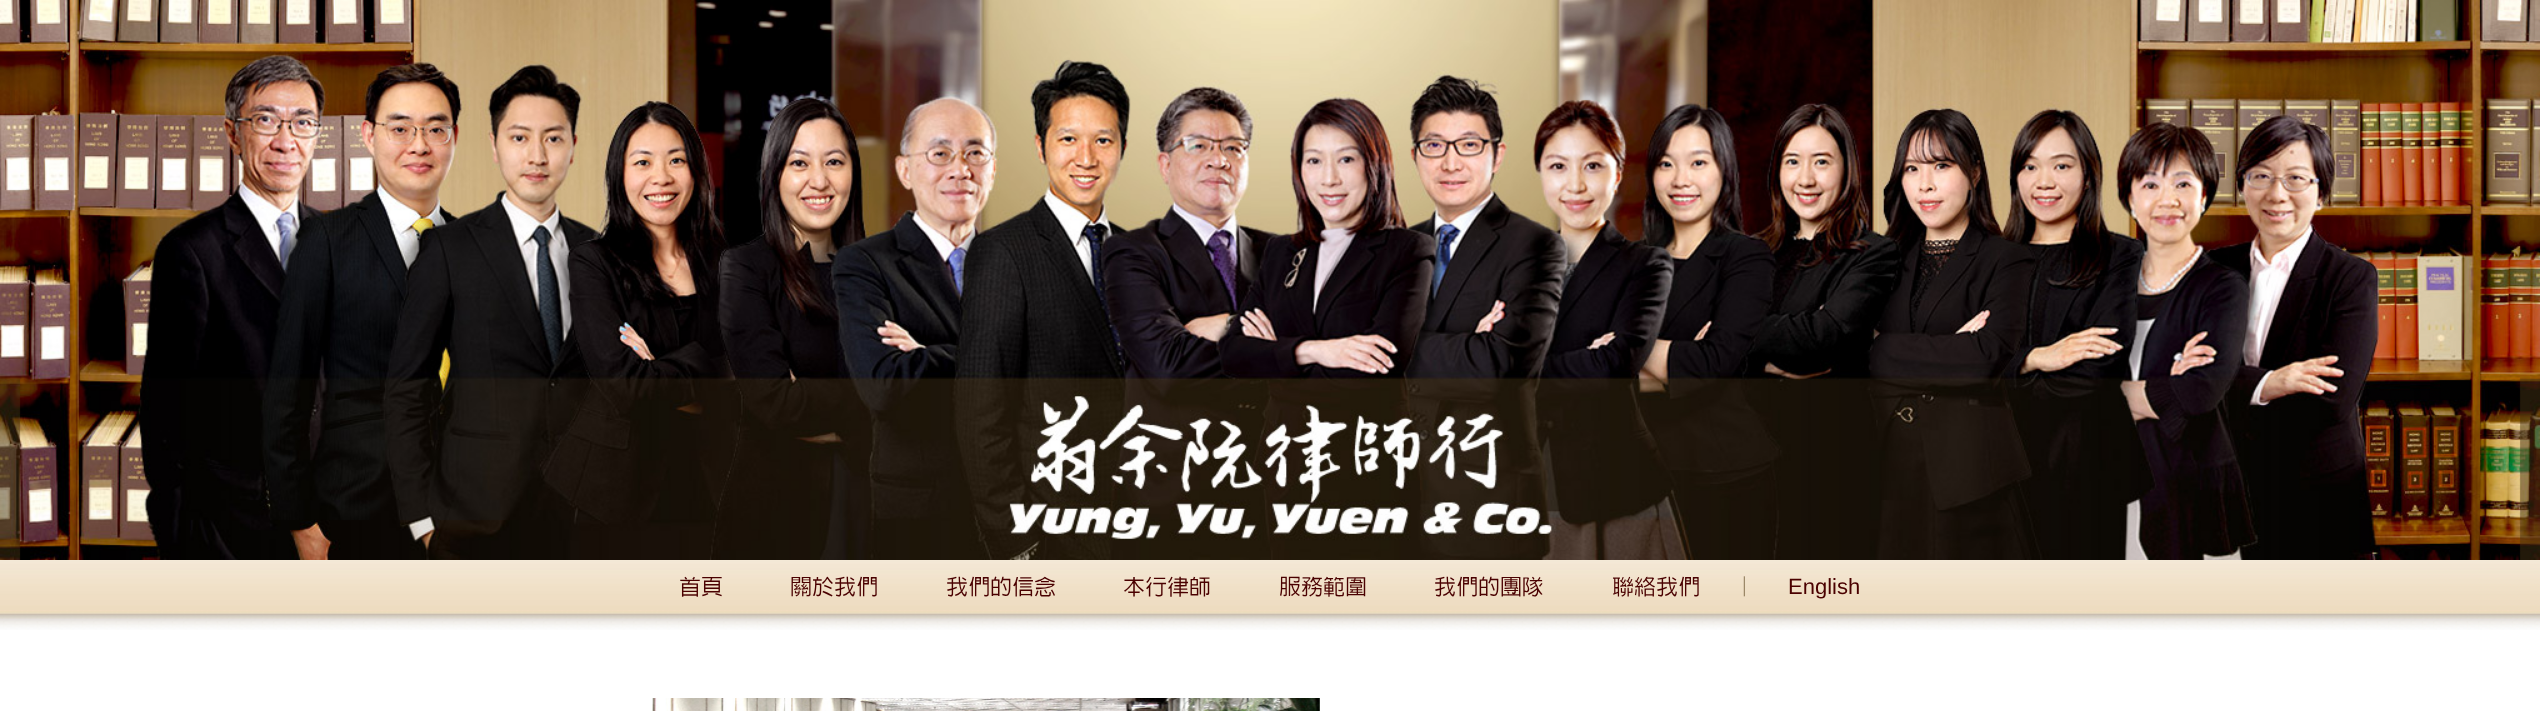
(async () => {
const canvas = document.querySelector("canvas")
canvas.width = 2540
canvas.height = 711
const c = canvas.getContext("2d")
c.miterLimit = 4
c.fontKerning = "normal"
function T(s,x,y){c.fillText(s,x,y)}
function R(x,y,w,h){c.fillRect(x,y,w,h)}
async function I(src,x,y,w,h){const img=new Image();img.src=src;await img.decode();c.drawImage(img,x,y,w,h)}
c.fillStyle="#fff"
R(0,0,2540,711)
await I("1.png",0,0,2540,560)
await I("2.png",0,560,2540,70)
c.font="500 22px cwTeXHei"
c.fillStyle="#4a0000"
T("首頁",679,594)
T("關於我們",790,594)
T("我們的信念",946,594)
T("本行律師",1123,594)
T("服務範圍",1279,594)
T("我們的團隊",1434,594)
T("聯絡我們",1612,594)
await I("3.png",1743,576,2,21)
c.font="22px Liberation Sans"
T("English",1788,594)
await I("4.png",652,698,668,13)
})()
